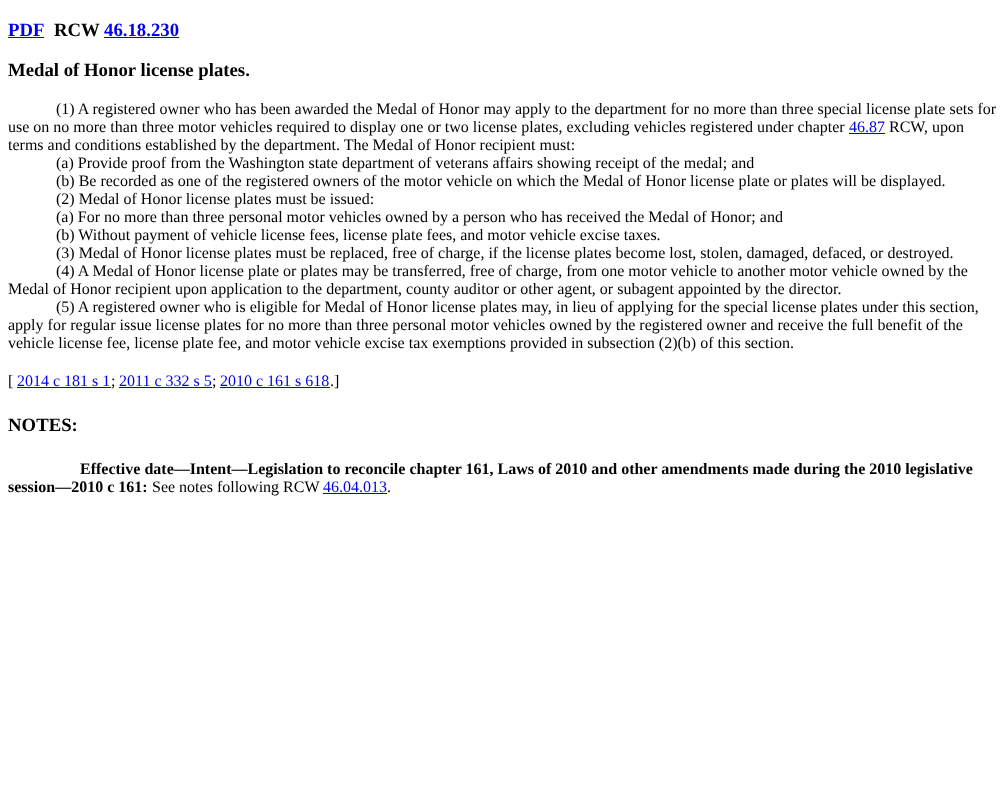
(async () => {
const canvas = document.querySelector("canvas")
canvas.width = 1007
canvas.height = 791
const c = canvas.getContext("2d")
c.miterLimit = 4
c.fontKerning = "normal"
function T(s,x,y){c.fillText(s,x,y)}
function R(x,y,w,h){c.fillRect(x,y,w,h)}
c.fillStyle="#fff"
R(0,0,1007,791)
c.font="bold 18.75px Liberation Serif"
c.fillStyle="#00e"
T("PDF",8,36)
R(8,37,36,1)
c.fillStyle="#000"
T("RCW",54,36)
c.fillStyle="#00e"
T("46.18.230",104,36)
R(104,37,75,1)
c.fillStyle="#000"
T("Medal of Honor license plates.",8,76)
c.font="16px Liberation Serif"
T("(1) A registered owner who has been awarded the Medal of Honor may apply to the department for no more than three special license plate sets for",56,114)
T("use on no more than three motor vehicles required to display one or two license plates, excluding vehicles registered under chapter",8,132)
c.fillStyle="#00e"
T("46.87",849,132)
R(849,133,36,1)
c.fillStyle="#000"
T("RCW, upon",889,132)
T("terms and conditions established by the department. The Medal of Honor recipient must:",8,150)
T("(a) Provide proof from the Washington state department of veterans affairs showing receipt of the medal; and",56,168)
T("(b) Be recorded as one of the registered owners of the motor vehicle on which the Medal of Honor license plate or plates will be displayed.",56,186)
T("(2) Medal of Honor license plates must be issued:",56,204)
T("(a) For no more than three personal motor vehicles owned by a person who has received the Medal of Honor; and",56,222)
T("(b) Without payment of vehicle license fees, license plate fees, and motor vehicle excise taxes.",56,240)
T("(3) Medal of Honor license plates must be replaced, free of charge, if the license plates become lost, stolen, damaged, defaced, or destroyed.",56,258)
T("(4) A Medal of Honor license plate or plates may be transferred, free of charge, from one motor vehicle to another motor vehicle owned by the",56,276)
T("Medal of Honor recipient upon application to the department, county auditor or other agent, or subagent appointed by the director.",8,294)
T("(5) A registered owner who is eligible for Medal of Honor license plates may, in lieu of applying for the special license plates under this section,",56,312)
T("apply for regular issue license plates for no more than three personal motor vehicles owned by the registered owner and receive the full benefit of the",8,330)
T("vehicle license fee, license plate fee, and motor vehicle excise tax exemptions provided in subsection (2)(b) of this section.",8,348)
T("[",8,386)
c.fillStyle="#00e"
T("2014 c 181 s 1",17,386)
R(17,387,94,1)
c.fillStyle="#000"
T(";",111,386)
c.fillStyle="#00e"
T("2011 c 332 s 5",119,386)
R(119,387,93,1)
c.fillStyle="#000"
T(";",212,386)
c.fillStyle="#00e"
T("2010 c 161 s 618",220,386)
R(220,387,110,1)
c.fillStyle="#000"
T(".]",330,386)
c.font="bold 18.75px Liberation Serif"
T("NOTES:",8,431)
c.font="bold 16px Liberation Serif"
T("Effective date—Intent—Legislation to reconcile chapter 161, Laws of 2010 and other amendments made during the 2010 legislative",80,474)
T("session—2010 c 161:",8,492)
c.font="16px Liberation Serif"
T("See notes following RCW",152,492)
c.fillStyle="#00e"
T("46.04.013",323,492)
R(323,493,64,1)
c.fillStyle="#000"
T(".",387,492)
})()
